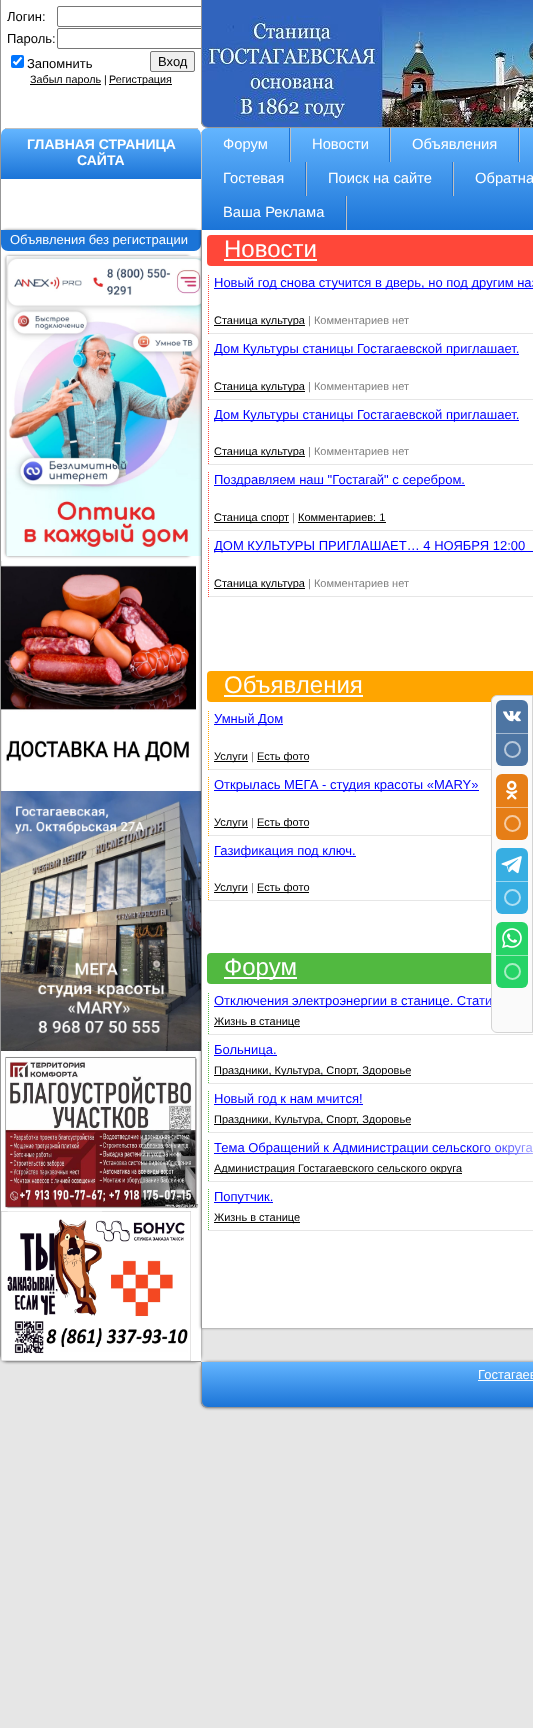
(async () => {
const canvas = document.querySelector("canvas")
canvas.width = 533
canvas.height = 1728
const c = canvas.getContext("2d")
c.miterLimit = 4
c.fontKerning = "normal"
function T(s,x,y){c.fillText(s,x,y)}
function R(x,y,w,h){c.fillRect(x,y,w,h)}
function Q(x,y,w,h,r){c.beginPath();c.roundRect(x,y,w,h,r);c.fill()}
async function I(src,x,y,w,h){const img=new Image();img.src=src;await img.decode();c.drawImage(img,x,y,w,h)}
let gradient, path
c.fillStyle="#e6e6e6"
R(0,0,533,1728)
c.fillStyle="#fff"
R(1,0,207,230)
c.fillStyle="#979797"
R(0,0,1,230)
c.font="13px Liberation Sans"
c.fillStyle="#000"
T("Логин:",7,21)
c.beginPath()
c.roundRect(57.5,6.5,145,20,1.5)
c.strokeStyle="#767676"
c.stroke()
T("Пароль:",7,43)
c.beginPath()
c.roundRect(57.5,28.5,145,20,1.5)
c.stroke()
c.fillStyle="#0075ff"
Q(11,55,13,13,2)
path = new Path2D("M13.5 61.5l2.5 2.5l5.5-6.5")
c.strokeStyle="#fff"
c.lineWidth=2.1
c.stroke(path)
c.fillStyle="#000"
T("Запомнить",27,68)
c.fillStyle="#efefef"
c.beginPath()
c.roundRect(150.5,51.5,44,20,1.5)
c.fill()
c.strokeStyle="#767676"
c.lineWidth=1
c.stroke()
c.fillStyle="#000"
T("Вход",158,66)
R(30,84,71,1)
c.font="10.75px Liberation Sans"
T("Забыл пароль |",30,83)
R(109,84,63,1)
T("Регистрация",109,83)
await I("1.png",201,0,332,127)
c.fillStyle="#979797"
path = new Path2D("M201 0h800v121c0 4-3 7-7 7h-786c-4 0-7-3-7-7zm1 0h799v121c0 3-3 6-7 6h-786c-3 0-6-3-6-6z")
c.fill(path,"evenodd")
c.save()
c.beginPath()
c.roundRect(1,128,200,51,[7,7,0,0])
c.clip()
gradient = c.createLinearGradient(101,129,101,179)
gradient.addColorStop(0,"#63b5ff")
gradient.addColorStop(1,"#1b74d7")
c.fillStyle = gradient
R(1,129,200,50)
c.restore()
c.fillStyle="#c0c0c0"
R(5,128,193,1)
c.font="bold 14px Liberation Sans"
c.fillStyle="#fff"
T("ГЛАВНАЯ СТРАНИЦА",27,149)
T("САЙТА",77,165)
c.fillStyle="#00000080"
c.filter="blur(1.5px)"
c.beginPath()
c.roundRect(201,1362,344,46,7)
c.fill()
c.filter="none"
c.save()
path = new Path2D("M201 1362h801v39c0 4-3 7-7 7h-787c-4 0-7-3-7-7z")
c.clip(path)
gradient = c.createLinearGradient(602,1362,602,1407)
gradient.addColorStop(0,"#63b5ff")
gradient.addColorStop(1,"#1b74d7")
c.fillStyle = gradient
R(201,1362,332,45)
c.restore()
c.fillStyle="#979797"
path = new Path2D("M201 1362h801v39c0 4-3 7-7 7h-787c-4 0-7-3-7-7zm1 0h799v39c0 3-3 6-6 6h-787c-3 0-6-3-6-6z")
c.fill(path,"evenodd")
c.fillStyle="#00000080"
c.filter="blur(1.5px)"
c.beginPath()
c.roundRect(0,230,201,1132,7)
c.fill()
c.filter="none"
c.fillStyle="#fff"
c.beginPath()
c.roundRect(0,230,201,1132,[0,0,0,7])
c.fill()
c.fillStyle="#979797"
path = new Path2D("M0 230h201v1132h-194c-4 0-7-3-7-7zm1 0h200v1131h-194c-3 0-6-3-6-6z")
c.fill(path,"evenodd")
c.fillStyle="#1b74d7"
c.beginPath()
c.roundRect(1,230,200,21,[0,0,7,7])
c.fill()
c.fillStyle="#00000080"
c.filter="blur(1.5px)"
c.beginPath()
c.roundRect(6,256,184,300,3)
c.fill()
c.filter="none"
await I("2.png",6,256,195,300)
await I("3.png",1,561,195,230)
await I("4.png",1,791,200,260)
await I("5.png",5,1056,194,154)
c.filter="blur(1.5px)"
c.beginPath()
c.rect(201,230,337,1098)
c.fill()
c.filter="none"
gradient = c.createLinearGradient(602,128,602,230)
gradient.addColorStop(0,"#63b5ff")
gradient.addColorStop(1,"#1b74d7")
c.fillStyle = gradient
path = new Path2D("M208 128h325c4 0 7 3 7 7v95h-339v-95c0-4 3-7 7-7z")
c.fill(path)
c.fillStyle="#c0c0c0"
R(201,132,1,98)
R(290,128,1,34)
c.fillStyle="#1b74d7"
R(289,128,1,34)
c.font="14.75px Liberation Sans"
c.fillStyle="#fff"
T("Форум",223,149)
c.fillStyle="#c0c0c0"
R(390,128,1,34)
c.fillStyle="#1b74d7"
R(389,128,1,34)
c.fillStyle="#fff"
T("Новости",312,149)
c.fillStyle="#c0c0c0"
R(519,128,1,34)
c.fillStyle="#1b74d7"
R(518,128,1,34)
c.fillStyle="#fff"
T("Объявления",412,149)
c.fillStyle="#c0c0c0"
R(306,162,1,34)
c.fillStyle="#1b74d7"
R(305,162,1,34)
c.fillStyle="#fff"
T("Гостевая",223,183)
c.fillStyle="#c0c0c0"
R(453,162,1,34)
c.fillStyle="#1b74d7"
R(452,162,1,34)
c.fillStyle="#fff"
T("Поиск на сайте",328,183)
T("Обратна",475,183)
c.fillStyle="#c0c0c0"
R(346,196,1,34)
c.fillStyle="#1b74d7"
R(345,196,1,34)
c.fillStyle="#fff"
T("Ваша Реклама",223,217)
c.font="13px Liberation Sans"
T("Объявления без регистрации",10,244)
await I("6.png",1,1211,190,150)
R(202,230,331,1098)
c.fillStyle="#979797"
R(201,230,1,1098)
c.fillStyle="#ff4739"
Q(207,235,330,31,4)
c.font="24px Liberation Sans"
c.fillStyle="#fff"
T("Новости",224,257)
R(224,259,93,2)
c.fillStyle="#e6e6e6"
R(208,333,325,1)
path = new Path2D("M208.5 275v59")
c.strokeStyle="#ff4739"
c.setLineDash([1,1])
c.stroke(path)
c.fillStyle="#00f"
R(214,288,319,1)
c.font="13px Liberation Sans"
T("Новый год снова стучится в дверь, но под другим наз",214,287)
c.fillStyle="#000"
R(214,325,91,1)
c.save()
c.beginPath()
c.rect(214,314,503,12)
c.clip()
c.font="11px Liberation Sans"
T("Станица культура",214,324)
c.restore()
c.font="11px Liberation Sans"
c.fillStyle="#808080"
T("| Комментариев нет",308,324)
c.fillStyle="#e6e6e6"
R(208,399,325,1)
path = new Path2D("M208.5 341v59")
c.stroke(path)
c.fillStyle="#00f"
R(214,354,305,1)
c.font="13px Liberation Sans"
T("Дом Культуры станицы Гостагаевской приглашает.",214,353)
c.fillStyle="#000"
R(214,391,91,1)
c.save()
c.beginPath()
c.rect(214,380,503,12)
c.clip()
c.font="11px Liberation Sans"
T("Станица культура",214,390)
c.restore()
c.font="11px Liberation Sans"
c.fillStyle="#808080"
T("| Комментариев нет",308,390)
c.fillStyle="#e6e6e6"
R(208,464,325,1)
path = new Path2D("M208.5 407v58")
c.stroke(path)
c.fillStyle="#00f"
R(214,420,305,1)
c.font="13px Liberation Sans"
T("Дом Культуры станицы Гостагаевской приглашает.",214,419)
c.fillStyle="#000"
R(214,456,91,1)
c.save()
c.beginPath()
c.rect(214,445,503,12)
c.clip()
c.font="11px Liberation Sans"
T("Станица культура",214,455)
c.restore()
c.font="11px Liberation Sans"
c.fillStyle="#808080"
T("| Комментариев нет",308,455)
c.fillStyle="#e6e6e6"
R(208,530,325,1)
path = new Path2D("M208.5 472v59")
c.stroke(path)
c.fillStyle="#00f"
R(214,485,251,1)
c.font="13px Liberation Sans"
T("Поздравляем наш \"Гостагай\" с серебром.",214,484)
c.fillStyle="#000"
R(214,522,75,1)
c.font="11px Liberation Sans"
T("Станица спорт",214,521)
c.fillStyle="#808080"
T("|",292,521)
c.fillStyle="#000"
R(298,522,88,1)
T("Комментариев: 1",298,521)
c.fillStyle="#e6e6e6"
R(208,596,325,1)
path = new Path2D("M208.5 538v59")
c.stroke(path)
c.fillStyle="#00f"
R(214,551,319,1)
c.font="13px Liberation Sans"
T("ДОМ КУЛЬТУРЫ ПРИГЛАШАЕТ… 4 НОЯБРЯ 12:00",214,550)
c.fillStyle="#000"
R(214,588,91,1)
c.save()
c.beginPath()
c.rect(214,577,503,12)
c.clip()
c.font="11px Liberation Sans"
T("Станица культура",214,587)
c.restore()
c.font="11px Liberation Sans"
c.fillStyle="#808080"
T("| Комментариев нет",308,587)
c.fillStyle="#ffa500"
Q(207,671,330,31,4)
c.font="24px Liberation Sans"
c.fillStyle="#fff"
T("Объявления",224,693)
R(224,695,139,2)
c.fillStyle="#e6e6e6"
R(208,769,283,1)
path = new Path2D("M208.5 711v59")
c.strokeStyle="#ffa500"
c.stroke(path)
c.fillStyle="#00f"
R(214,724,69,1)
c.font="13px Liberation Sans"
T("Умный Дом",214,723)
c.fillStyle="#000"
R(214,761,34,1)
c.font="11px Liberation Sans"
T("Услуги",214,760)
c.fillStyle="#808080"
T("|",251,760)
c.fillStyle="#000"
R(257,761,52,1)
T("Есть фото",257,760)
c.fillStyle="#e6e6e6"
R(208,835,283,1)
path = new Path2D("M208.5 777v59")
c.stroke(path)
c.fillStyle="#00f"
R(214,790,265,1)
c.font="13px Liberation Sans"
T("Открылась МЕГА - студия красоты «MARY»",214,789)
c.fillStyle="#000"
R(214,827,34,1)
c.font="11px Liberation Sans"
T("Услуги",214,826)
c.fillStyle="#808080"
T("|",251,826)
c.fillStyle="#000"
R(257,827,52,1)
T("Есть фото",257,826)
c.fillStyle="#e6e6e6"
R(208,900,283,1)
path = new Path2D("M208.5 843v58")
c.stroke(path)
c.fillStyle="#00f"
R(214,856,142,1)
c.font="13px Liberation Sans"
T("Газификация под ключ.",214,855)
c.fillStyle="#000"
R(214,892,34,1)
c.font="11px Liberation Sans"
T("Услуги",214,891)
c.fillStyle="#808080"
T("|",251,891)
c.fillStyle="#000"
R(257,892,52,1)
T("Есть фото",257,891)
c.fillStyle="#51b940"
Q(207,953,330,31,4)
c.fillStyle="#fff"
R(224,977,73,2)
c.font="24px Liberation Sans"
T("Форум",224,975)
c.fillStyle="#e6e6e6"
R(208,1034,325,1)
path = new Path2D("M208.5 993v42")
c.strokeStyle="#51b940"
c.stroke(path)
c.fillStyle="#00f"
R(214,1006,277,1)
c.font="13px Liberation Sans"
T("Отключения электроэнергии в станице. Стати",214,1005)
gradient = c.createLinearGradient(477,1006,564,1006)
gradient.addColorStop(0,"#ffffff00")
gradient.addColorStop(1,"#fff")
c.fillStyle = gradient
R(479,998,12,9)
c.fillStyle="#000"
R(214,1026,86,1)
c.font="11px Liberation Sans"
T("Жизнь в станице",214,1025)
c.fillStyle="#e6e6e6"
R(208,1083,325,1)
path = new Path2D("M208.5 1042v42")
c.stroke(path)
c.fillStyle="#00f"
R(214,1055,63,1)
c.font="13px Liberation Sans"
T("Больница.",214,1054)
c.fillStyle="#000"
R(214,1075,197,1)
c.save()
c.beginPath()
c.rect(214,1064,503,12)
c.clip()
c.font="11px Liberation Sans"
T("Праздники, Культура, Спорт, Здоровье",214,1074)
c.restore()
c.fillStyle="#e6e6e6"
R(208,1132,325,1)
path = new Path2D("M208.5 1091v42")
c.stroke(path)
c.fillStyle="#00f"
R(214,1104,149,1)
T("Новый год к нам мчится!",214,1103)
c.fillStyle="#000"
R(214,1124,197,1)
c.save()
c.beginPath()
c.rect(214,1113,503,12)
c.clip()
c.font="11px Liberation Sans"
T("Праздники, Культура, Спорт, Здоровье",214,1123)
c.restore()
c.fillStyle="#e6e6e6"
R(208,1181,325,1)
path = new Path2D("M208.5 1140v42")
c.stroke(path)
c.fillStyle="#00f"
R(214,1153,319,1)
T("Тема Обращений к Администрации сельского округа",214,1152)
gradient = c.createLinearGradient(477,1153,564,1153)
gradient.addColorStop(0,"#ffffff00")
gradient.addColorStop(1,"#fff")
c.fillStyle = gradient
R(479,1145,54,10)
c.fillStyle="#000"
R(214,1173,248,1)
c.save()
c.beginPath()
c.rect(214,1162,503,12)
c.clip()
c.font="11px Liberation Sans"
T("Администрация Гостагаевского сельского округа",214,1172)
c.restore()
c.fillStyle="#e6e6e6"
R(208,1230,325,1)
path = new Path2D("M208.5 1189v42")
c.stroke(path)
c.fillStyle="#00f"
R(214,1202,59,1)
T("Попутчик.",214,1201)
c.fillStyle="#000"
R(214,1222,86,1)
c.font="11px Liberation Sans"
T("Жизнь в станице",214,1221)
c.fillStyle="#fafafa"
c.beginPath()
c.roundRect(491.5,695.5,41,337,[5.5,0,0,5.5])
c.fill()
c.strokeStyle="#d4d4d4"
c.setLineDash([])
c.stroke()
c.fillStyle="#4d75a3"
Q(496,700,32,66,6)
await I("7.png",503,711,18,11)
c.fillStyle="#a6bad1"
R(496,733,32,1)
c.beginPath()
c.arc(512.5,749.5,7.5,0,7)
c.strokeStyle="#b8c8da"
c.lineWidth=2
c.stroke()
c.fillStyle="#e67e17"
Q(496,774,32,66,6)
await I("8.png",506,780,12,20)
c.fillStyle="#f3bf8b"
R(496,807,32,1)
c.beginPath()
c.arc(512.5,823.5,7.5,0,7)
c.strokeStyle="#f5cba2"
c.stroke()
c.fillStyle="#37aee2"
Q(496,848,32,66,6)
await I("9.png",501,856,21,18)
c.fillStyle="#9bd7f1"
R(496,881,32,1)
c.beginPath()
c.arc(512.5,897.5,7.5,0,7)
c.strokeStyle="#afdff3"
c.stroke()
c.fillStyle="#25d366"
Q(496,922,32,66,6)
await I("10.png",502,928,20,20)
c.fillStyle="#92e9b3"
R(496,955,32,1)
c.beginPath()
c.arc(512.5,971.5,7.5,0,7)
c.strokeStyle="#a8edc2"
c.stroke()
c.font="13px Liberation Sans"
c.fillStyle="#fff"
T("Гостагаев",478,1379)
R(478,1380,55,1)
})()
